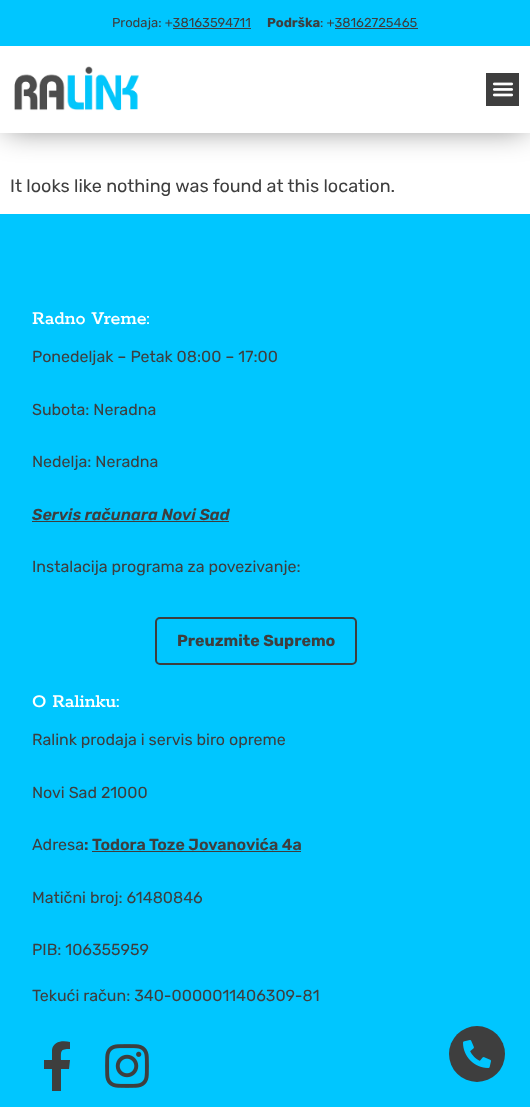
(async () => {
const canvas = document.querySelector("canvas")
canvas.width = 530
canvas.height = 1107
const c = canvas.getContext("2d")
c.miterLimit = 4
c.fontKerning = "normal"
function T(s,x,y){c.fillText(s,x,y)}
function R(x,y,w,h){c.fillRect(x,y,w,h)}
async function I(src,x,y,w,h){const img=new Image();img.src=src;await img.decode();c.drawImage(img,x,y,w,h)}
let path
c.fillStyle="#fff"
R(0,0,530,1107)
c.fillStyle="#00000080"
c.filter="blur(15px)"
c.beginPath()
c.rect(6,6,520,123)
c.fill()
c.filter="none"
c.fillStyle="#fff"
R(0,46,530,87)
c.fillStyle="#00c6ff"
R(0,0,530,46)
c.font="13px Rubik"
c.fillStyle="#3e3e3e"
T("Prodaja: +38163594711",112,27)
R(173,28,78,1)
c.font="bold 13px Rubik"
T("Podrška",267,27)
c.font="13px Rubik"
T(": +38162725465",320,27)
R(335,28,83,1)
await I("1.png",14,66,125,45)
R(486,73,33,33)
await I("2.png",492,82,22,15)
c.font="18px Rubik"
T("It looks like nothing was found at this location.",10,192)
c.fillStyle="#00c6ff"
R(0,214,530,893)
c.font="500 20px Rokkitt"
c.fillStyle="#fff"
T("Radno Vreme:",32,324)
c.font="16px Rubik"
c.fillStyle="#3e3e3e"
T("Ponedeljak – Petak 08:00 – 17:00",32,362)
T("Subota: Neradna",32,415)
T("Nedelja: Neradna",32,467)
c.font="italic 600 16px Rubik"
T("Servis računara Novi Sad",32,520)
R(32,521,197,1)
c.font="16px Rubik"
T("Instalacija programa za povezivanje:",32,572)
c.beginPath()
c.roundRect(156,618,200,46,4)
c.strokeStyle="#3e3e3e"
c.lineWidth=2
c.stroke()
c.font="bold 16px Rubik"
T("Preuzmite Supremo",177,646)
c.font="500 20px Rokkitt"
c.fillStyle="#fff"
T("O Ralinku:",32,707)
c.font="16px Rubik"
c.fillStyle="#3e3e3e"
T("Ralink prodaja i servis biro opreme",32,745)
T("Novi Sad 21000",32,798)
T("Adresa",32,850)
c.font="600 16px Rubik"
T(":",84,850)
T("Todora Toze Jovanovića 4a",92,850)
R(92,851,209,1)
c.font="16px Rubik"
T("Matični broj: 61480846",32,903)
T("PIB: 106355959",32,955)
T("Tekući račun: 340-0000011406309-81",32,1001)
path = new Path2D("M69 1069l1-9h-9c0-9-1-11 9-11v-7c-7-2-17-1-18 8v10h-8v9h8v22h9v-22z")
c.fill(path)
await I("3.png",105,1044,44,44)
c.beginPath()
c.arc(477,1054,28,0,7)
c.fill()
await I("4.png",463,1040,28,28)
})()
